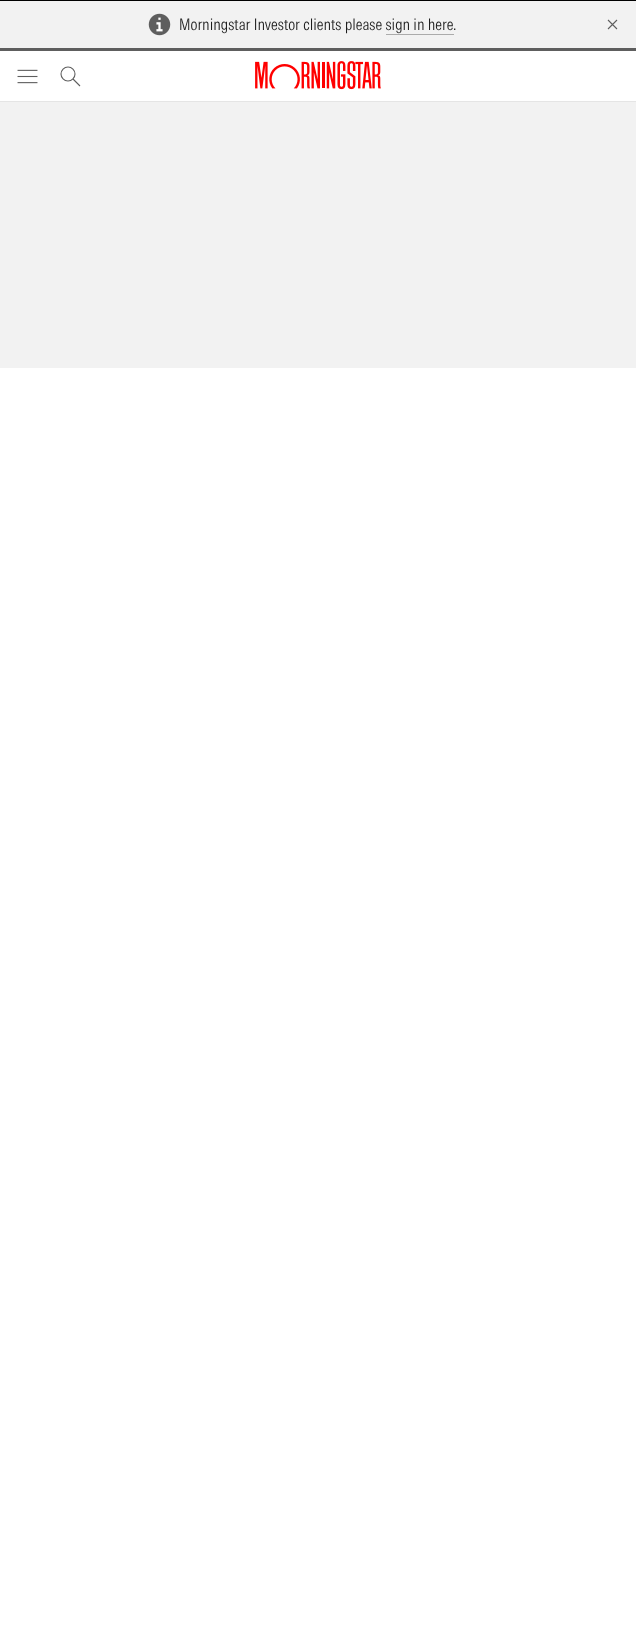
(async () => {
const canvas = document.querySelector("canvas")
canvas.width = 636
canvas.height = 1645
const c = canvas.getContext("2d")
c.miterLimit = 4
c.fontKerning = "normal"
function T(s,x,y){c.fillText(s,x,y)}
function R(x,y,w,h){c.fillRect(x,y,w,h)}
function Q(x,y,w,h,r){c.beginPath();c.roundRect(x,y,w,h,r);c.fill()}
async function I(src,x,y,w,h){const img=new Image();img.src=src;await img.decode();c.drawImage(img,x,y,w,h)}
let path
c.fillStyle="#fff"
R(0,0,636,1645)
c.fillStyle="#f2f2f2"
R(0,1,636,47)
c.fillStyle="#000"
R(0,0,636,1)
c.fillStyle="#5e5e5e"
R(0,48,636,3)
c.fillStyle="#fff"
Q(151,16,18,17,8.5)
await I("1.png",148,13,23,23)
c.font="16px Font"
c.fillStyle="#1e1e1e"
T("Morningstar Investor clients please sign in here.",179,30)
c.fillStyle="#ababab"
R(386,34,68,1)
path = new Path2D("M608 20l9 9m0-9l-9 9")
c.strokeStyle="#5e5e5e"
c.lineWidth=1.1
c.stroke(path)
c.fillStyle="#e5e5e5"
R(0,101,636,1)
await I("2.png",17,69,21,15)
path = new Path2D("M73 79l7 7")
c.stroke(path)
c.beginPath()
c.arc(68,74,7,0,7)
c.stroke()
await I("3.png",255,61,126,29)
c.fillStyle="#f2f2f2"
R(0,102,636,266)
})()
